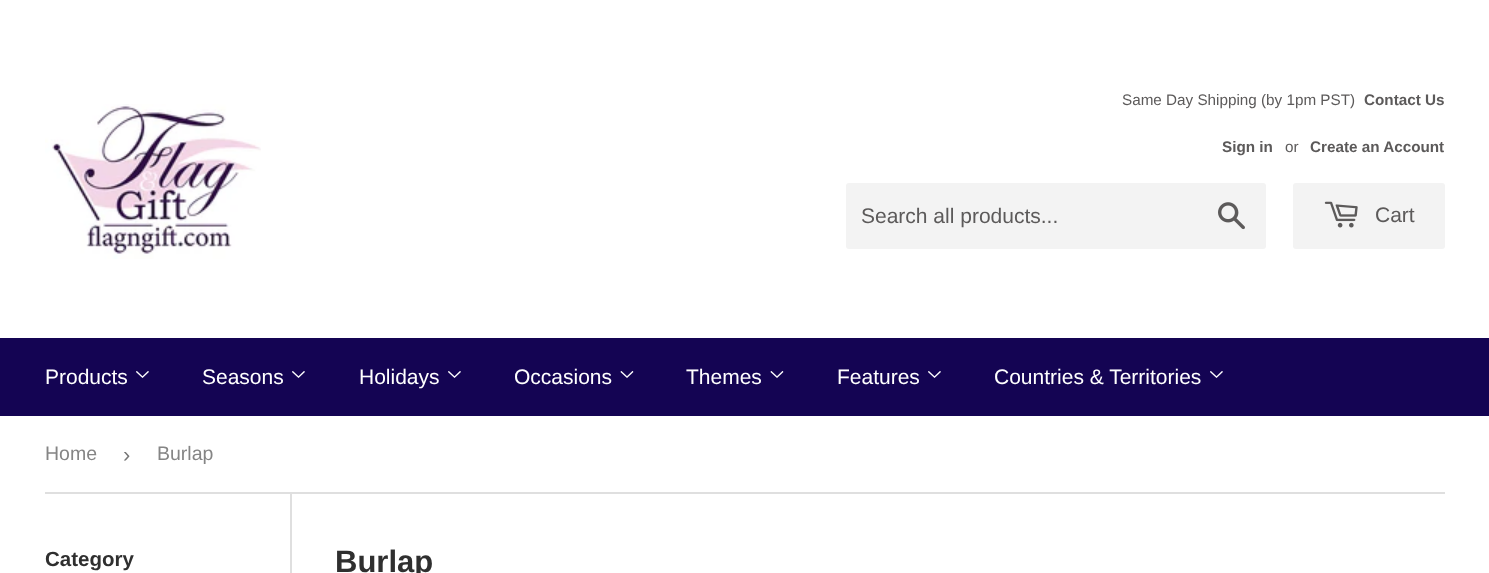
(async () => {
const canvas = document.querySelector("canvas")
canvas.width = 1489
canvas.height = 573
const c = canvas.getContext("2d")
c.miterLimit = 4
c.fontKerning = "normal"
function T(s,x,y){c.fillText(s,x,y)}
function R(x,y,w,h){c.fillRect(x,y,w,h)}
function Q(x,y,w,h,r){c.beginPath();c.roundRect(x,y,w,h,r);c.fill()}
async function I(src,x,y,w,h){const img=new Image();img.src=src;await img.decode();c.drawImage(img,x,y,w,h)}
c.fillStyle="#fff"
R(0,0,1489,573)
await I("1.png",45,104,216,155)
c.font="15.25px Liberation Sans"
c.fillStyle="#5c5a5a"
T("Same Day Shipping (by 1pm PST)",1122,105)
c.font="bold 15.25px Liberation Sans"
T("Contact Us",1364,105)
T("Sign in",1222,152)
c.font="15.25px Liberation Sans"
T("or",1285,152)
c.font="bold 15.25px Liberation Sans"
T("Create an Account",1310,152)
c.fillStyle="#f3f3f3"
Q(846,183,420,66,3)
c.font="21px Liberation Sans"
c.fillStyle="#5c5a5a"
T("Search all products...",861,223)
await I("2.png",1218,202,27,28)
c.fillStyle="#f3f3f3"
Q(1293,183,152,66,3)
await I("3.png",1324,201,34,27)
c.fillStyle="#5c5a5a"
T("Cart",1375,222)
c.fillStyle="#140453"
R(0,338,1489,78)
c.fillStyle="#fff"
T("Products",45,384)
await I("4.png",136,371,13,7)
T("Seasons",202,384)
await I("4.png",292,371,13,7)
T("Holidays",359,384)
await I("4.png",448,371,13,7)
T("Occasions",514,384)
await I("5.png",620,371,14,7)
T("Themes",686,384)
await I("5.png",770,371,14,7)
T("Features",837,384)
await I("4.png",928,371,13,7)
T("Countries & Territories",994,384)
await I("4.png",1210,371,13,7)
c.fillStyle="#dfdfdf"
R(45,492,1400,2)
c.font="19.5px Liberation Sans"
c.fillStyle="#858585"
T("Home",45,460)
c.font="22px Liberation Sans"
c.fillStyle="#767676"
T("›",123,462)
c.font="19.5px Liberation Sans"
c.fillStyle="#858585"
T("Burlap",157,460)
c.font="bold 20.5px Liberation Sans"
c.fillStyle="#2f2f2f"
T("Category",45,566)
c.fillStyle="#dfdfdf"
R(290,494,2,79)
c.font="bold 31px Liberation Sans"
c.fillStyle="#2f2f2f"
T("Burlap",335,572)
})()
